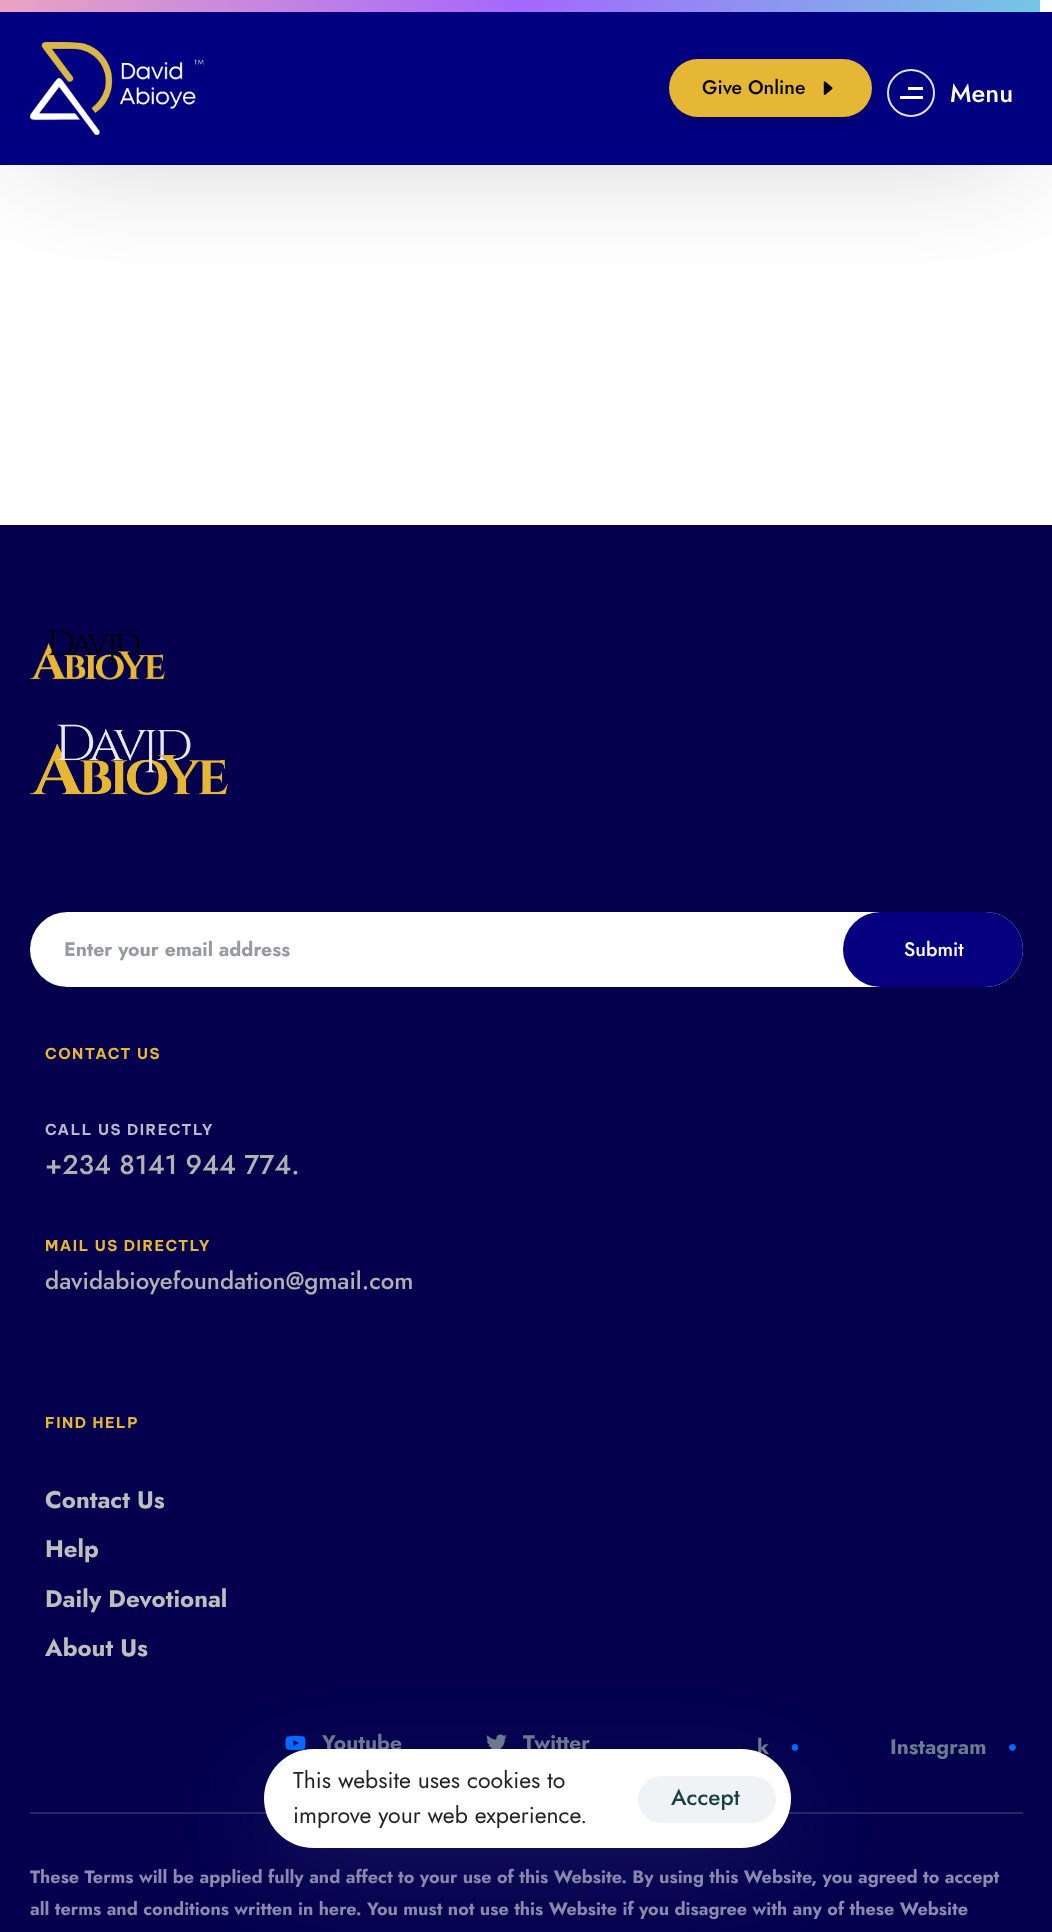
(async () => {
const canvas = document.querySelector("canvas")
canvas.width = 1052
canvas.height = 1932
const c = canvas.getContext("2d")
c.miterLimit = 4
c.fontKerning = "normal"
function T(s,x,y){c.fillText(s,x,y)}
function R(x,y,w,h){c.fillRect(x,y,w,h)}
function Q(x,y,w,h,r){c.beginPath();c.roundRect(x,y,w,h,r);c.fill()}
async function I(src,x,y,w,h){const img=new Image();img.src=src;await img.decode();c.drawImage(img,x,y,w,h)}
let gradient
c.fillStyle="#fff"
R(0,0,1052,1932)
c.fillStyle="#00000040"
c.filter="blur(67.5px)"
c.beginPath()
c.rect(27,47,993,93)
c.fill()
c.filter="none"
c.fillStyle="#000080"
R(0,12,1052,153)
await I("1.png",30,42,174,93)
c.fillStyle="#00000029"
c.filter="blur(4.5px)"
c.beginPath()
c.roundRect(669,63,203,59,29.5)
c.fill()
c.filter="none"
c.fillStyle="#e6b735"
Q(669,59,203,58,29)
c.font="500 19.5px Jost"
c.fillStyle="#000"
T("Give Online",702,94)
await I("2.png",823,81,10,14)
c.beginPath()
c.arc(911,93,23,0,7)
c.strokeStyle="#e1e1e1"
c.lineWidth=2
c.stroke()
c.fillStyle="#fff"
R(908,87,15,3)
R(900,96,23,3)
c.font="500 25.5px Jost"
T("Menu",950,102)
R(1040,0,12,12)
gradient = c.createLinearGradient(0,6,1039,6)
gradient.addColorStop(0,"#e9a4c2")
gradient.addColorStop(.5,"#a468fc")
gradient.addColorStop(1,"#74c6e5")
c.fillStyle = gradient
R(0,0,1040,12)
c.fillStyle="#04004e"
R(0,525,1052,1407)
await I("3.png",30,630,135,50)
await I("4.png",30,724,198,71)
c.fillStyle="#fff"
Q(30,912,993,75,37.5)
c.font="bold 19.5px Jost"
c.fillStyle="#9999a3"
T("Enter your email address",64,956)
c.fillStyle="#060080"
Q(843,912,180,75,37.5)
c.font="500 19.5px Jost"
c.fillStyle="#fff"
T("Submit",904,956)
c.letterSpacing="1.5px"
c.font="bold 15px Be Vietnam Pro"
c.fillStyle="#e6b735"
T("CONTACT US",45,1059)
c.fillStyle="#b9b8cd"
T("CALL US DIRECTLY",45,1135)
c.letterSpacing="0px"
c.font="500 27px Jost"
c.fillStyle="#b1b1b1"
T("+234 8141 944 774.",45,1174)
c.letterSpacing="1.5px"
c.font="bold 15px Be Vietnam Pro"
c.fillStyle="#e6b735"
T("MAIL US DIRECTLY",45,1251)
c.letterSpacing="0px"
c.font="500 24px Jost"
c.fillStyle="#b1b1b1"
T("davidabioyefoundation@gmail.com",45,1289)
c.letterSpacing="1.5px"
c.font="bold 15px Be Vietnam Pro"
c.fillStyle="#e6b735"
T("FIND HELP",45,1428)
c.letterSpacing="0px"
c.font="bold 24px Jost"
c.fillStyle="#bebebe"
T("Contact Us",45,1508)
T("Help",45,1557)
T("Daily Devotional",45,1607)
T("About Us",45,1656)
await I("5.png",285,1736,21,14)
c.font="bold 21px Jost"
c.fillStyle="#6a7a90"
T("Youtube",322,1750)
await I("6.png",486,1734,21,15)
T("Twitter",523,1750)
T("k",757,1754)
await I("7.png",791,1744,8,7)
T("Instagram",890,1754)
await I("8.png",1009,1744,7,7)
c.fillStyle="#262766"
R(30,1812,993,2)
c.font="bold 18px Jost"
c.fillStyle="#8c8aae"
T("These Terms will be applied fully and affect to your use of this Website. By using this Website, you agreed to accept",30,1883)
T("all terms and conditions written in here. You must not use this Website if you disagree with any of these Website",30,1915)
c.fillStyle="#5c6b9526"
c.filter="blur(45px)"
c.beginPath()
c.roundRect(264,1779,527,99,49.5)
c.fill()
c.filter="none"
c.fillStyle="#fff"
Q(264,1749,527,99,49.5)
c.font="23px Jost"
c.fillStyle="#242424"
T("This website uses cookies to",293,1788)
T("improve your web experience.",293,1823)
c.fillStyle="#eff3f5"
Q(638,1776,138,47,23.5)
c.font="500 22.5px Jost"
c.fillStyle="#184341"
T("Accept",671,1805)
})()
